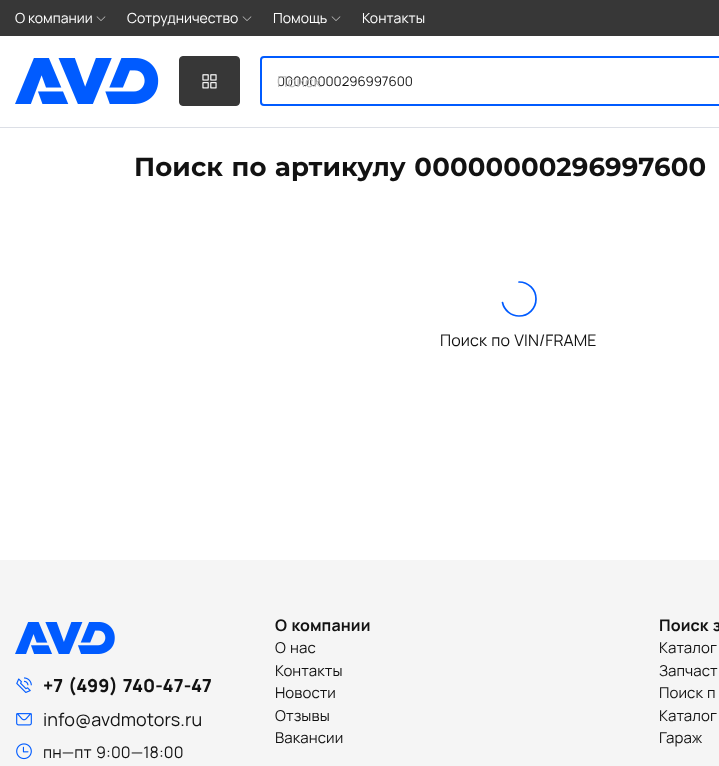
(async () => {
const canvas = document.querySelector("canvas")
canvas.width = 719
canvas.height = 766
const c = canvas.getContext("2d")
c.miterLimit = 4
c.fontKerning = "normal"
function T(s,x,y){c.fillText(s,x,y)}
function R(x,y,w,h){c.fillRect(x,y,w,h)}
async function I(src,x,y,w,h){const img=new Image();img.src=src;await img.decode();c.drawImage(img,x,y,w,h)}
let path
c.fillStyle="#fff"
R(0,0,719,766)
c.fillStyle="#373737"
R(0,0,719,36)
c.font="14px Manrope"
c.fillStyle="#fff"
T("О компании",15,23)
await I("1.png",96,16,10,5)
T("Сотрудничество",127,23)
await I("1.png",242,16,10,5)
T("Помощь",273,23)
await I("1.png",331,16,10,5)
c.letterSpacing="0.1px"
T("Контакты",362,23)
c.fillStyle="#dcdfe6"
R(0,127,719,1)
await I("2.png",15,58,144,46)
c.fillStyle="#373737"
c.beginPath()
c.roundRect(179.5,56.5,60,49,3.5)
c.fill()
c.strokeStyle="#373737"
c.stroke()
await I("3.png",202,74,15,15)
c.beginPath()
c.roundRect(261,57,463,48,3)
c.strokeStyle="#005bff"
c.lineWidth=2
c.stroke()
c.letterSpacing="0px"
c.font="13.25px Manrope"
c.fillStyle="#121212"
T("00000000296997600",277,86)
c.letterSpacing="0.1px"
c.font="15px Manrope"
c.fillStyle="#c0c0c0"
T("Поиск",277,87)
c.wordSpacing="1px"
c.font="bold 26px Montserrat"
c.fillStyle="#121212"
T("Поиск по артикулу 00000000296997600",134,176)
path = new Path2D("M519 282c9.5 0 17 7.5 17 17c0 9.5-7.5 17-17 17c-8 0-15-6-16.5-13.5")
c.lineWidth=1.7
c.lineCap="round"
c.stroke(path)
c.font="16px Manrope"
T("Поиск по VIN/FRAME",440,346)
c.fillStyle="#f5f5f5"
R(0,560,719,206)
await I("4.png",15,622,100,32)
await I("5.png",16,677,16,16)
c.font="800 18px Manrope"
c.fillStyle="#121212"
T("+7 (499) 740-47-47",43,692)
await I("6.png",16,713,16,13)
c.wordSpacing="0px"
c.font="18px Manrope"
T("info@avdmotors.ru",43,726)
await I("7.png",16,743,16,17)
c.wordSpacing="1px"
c.font="16px Manrope"
T("пн—пт 9:00—18:00",43,758)
c.font="bold 16px Manrope"
T("О компании",275,631)
c.font="15px Manrope"
T("О нас",275,653)
c.wordSpacing="0px"
T("Контакты",275,676)
T("Новости",275,698)
T("Отзывы",275,721)
T("Вакансии",275,743)
c.wordSpacing="1px"
c.font="bold 16px Manrope"
T("Поиск з",659,631)
c.wordSpacing="0px"
c.font="15px Manrope"
T("Каталог",659,653)
c.wordSpacing="1px"
T("Запчаст",659,676)
T("Поиск п",659,698)
T("Каталог",659,721)
c.wordSpacing="0px"
T("Гараж",659,743)
})()
